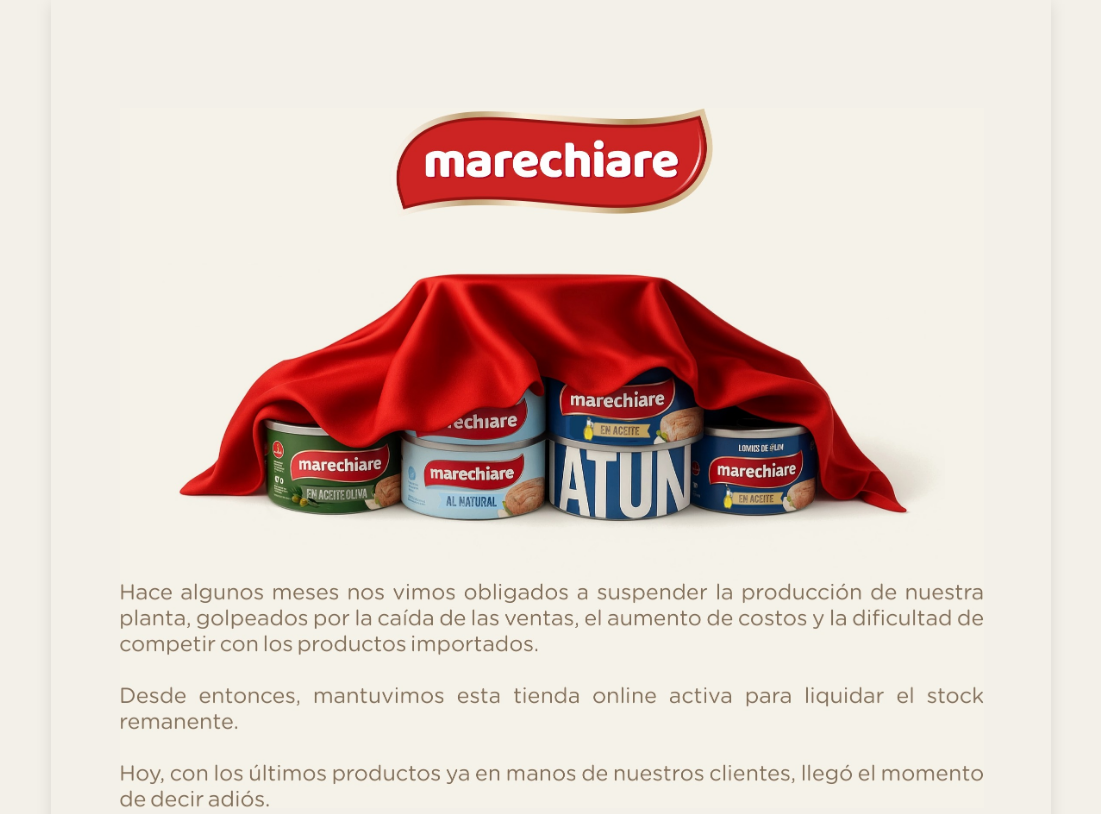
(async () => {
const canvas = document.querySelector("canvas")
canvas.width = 1101
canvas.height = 814
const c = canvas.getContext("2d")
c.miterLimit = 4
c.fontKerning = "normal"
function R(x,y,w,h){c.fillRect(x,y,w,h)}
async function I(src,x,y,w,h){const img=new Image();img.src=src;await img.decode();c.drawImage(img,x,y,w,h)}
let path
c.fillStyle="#f3f0e9"
R(0,0,1101,814)
c.save()
path = new Path2D("M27 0h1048v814h-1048zm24 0h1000v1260h-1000z")
c.clip(path,"evenodd")
c.fillStyle="#0000001a"
c.filter="blur(7.5px)"
c.beginPath()
c.rect(51,4,1000,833)
c.fill()
c.filter="none"
c.restore()
await I("1.png",120,108,864,700)
})()
